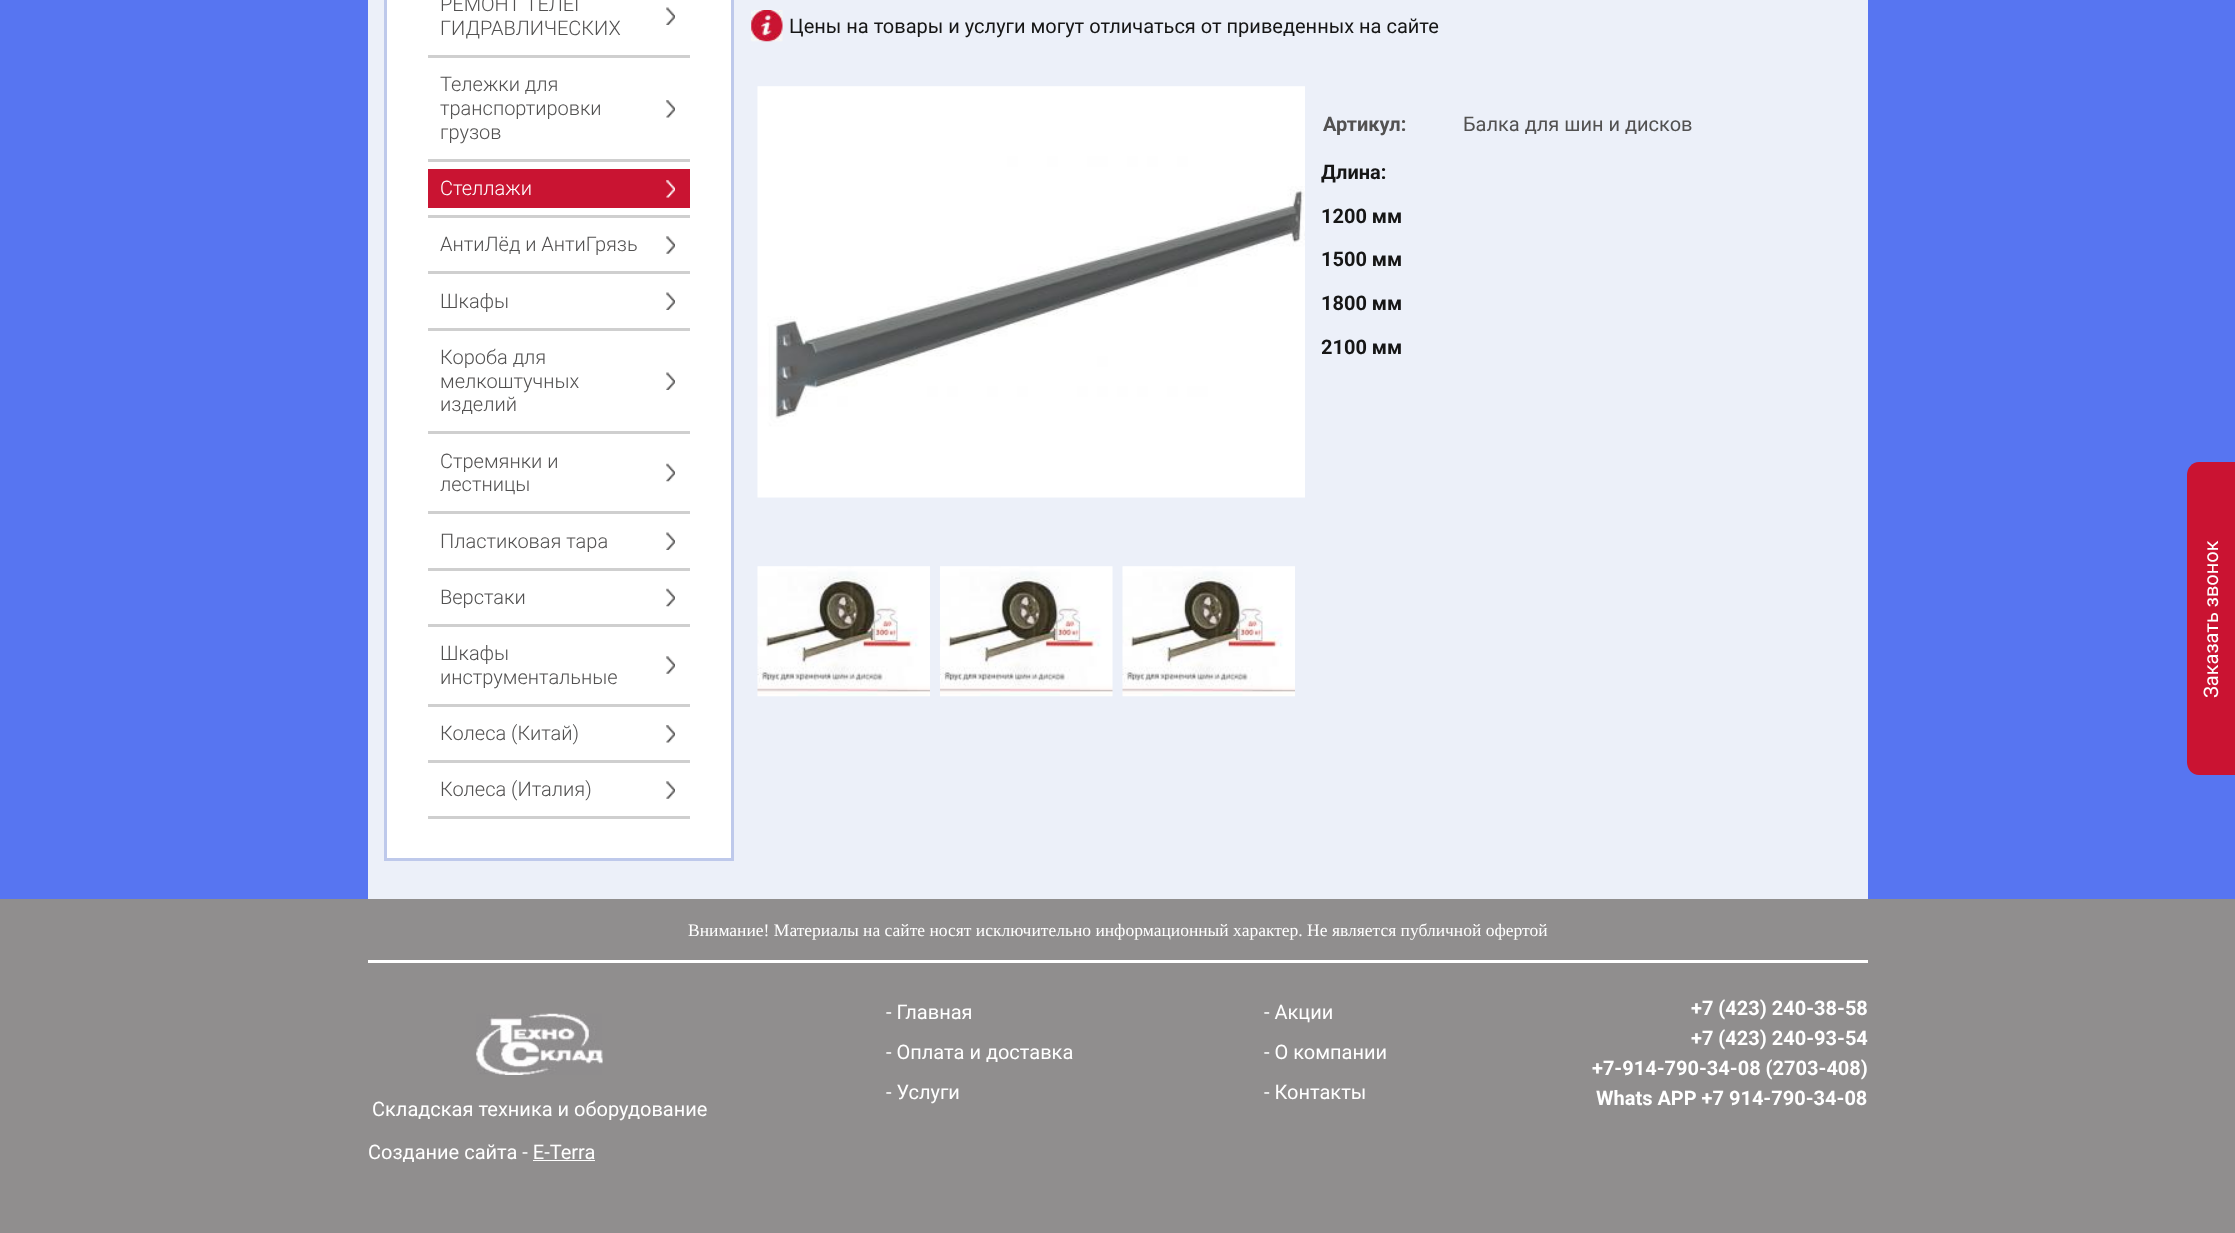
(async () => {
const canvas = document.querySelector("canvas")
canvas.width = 2235
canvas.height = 1233
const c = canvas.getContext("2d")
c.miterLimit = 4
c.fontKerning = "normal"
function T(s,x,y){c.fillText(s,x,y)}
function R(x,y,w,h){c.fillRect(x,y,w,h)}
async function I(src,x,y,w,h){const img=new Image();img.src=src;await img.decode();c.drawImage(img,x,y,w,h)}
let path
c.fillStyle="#5775f1"
R(0,0,2235,1233)
c.fillStyle="#ecf0f9"
R(368,0,1500,899)
c.fillStyle="#fff"
c.beginPath()
c.rect(385.5,-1.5,347,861)
c.fill()
c.strokeStyle="#bec9eb"
c.lineWidth=3
c.stroke()
c.fillStyle="#cfcfcf"
R(428,55,262,3)
await I("1.png",666,7,9,18)
c.wordSpacing="1px"
c.font="300 20px Roboto"
c.fillStyle="#525151"
T("РЕМОНТ ТЕЛЕГ",440,11)
c.wordSpacing="0px"
T("ГИДРАВЛИЧЕСКИХ",440,35)
c.fillStyle="#cfcfcf"
R(428,159,262,3)
await I("2.png",666,100,9,18)
c.fillStyle="#525151"
T("Тележки для",440,91)
T("транспортировки",440,115)
T("грузов",440,139)
c.fillStyle="#cfcfcf"
R(428,215,262,3)
c.fillStyle="#c91432"
R(428,169,262,39)
await I("3.png",666,180,9,18)
c.fillStyle="#fff"
T("Стеллажи",440,195)
c.fillStyle="#cfcfcf"
R(428,271,262,3)
await I("4.png",666,236,9,18)
c.fillStyle="#525151"
T("АнтиЛёд и АнтиГрязь",440,251)
c.fillStyle="#cfcfcf"
R(428,328,262,3)
await I("1.png",666,292,9,18)
c.fillStyle="#525151"
T("Шкафы",440,308)
c.fillStyle="#cfcfcf"
R(428,431,262,3)
await I("1.png",666,372,9,18)
c.fillStyle="#525151"
T("Короба для",440,364)
T("мелкоштучных",440,388)
T("изделий",440,411)
c.fillStyle="#cfcfcf"
R(428,511,262,3)
await I("5.png",666,463,9,19)
c.fillStyle="#525151"
T("Стремянки и",440,468)
T("лестницы",440,491)
c.fillStyle="#cfcfcf"
R(428,568,262,3)
await I("1.png",666,532,9,18)
c.fillStyle="#525151"
T("Пластиковая тара",440,548)
c.fillStyle="#cfcfcf"
R(428,624,262,3)
await I("5.png",666,588,9,19)
c.fillStyle="#525151"
T("Верстаки",440,604)
c.fillStyle="#cfcfcf"
R(428,704,262,3)
await I("4.png",666,656,9,18)
c.fillStyle="#525151"
T("Шкафы",440,660)
T("инструментальные",440,684)
c.fillStyle="#cfcfcf"
R(428,760,262,3)
await I("2.png",666,725,9,18)
c.fillStyle="#525151"
T("Колеса (Китай)",440,740)
c.fillStyle="#cfcfcf"
R(428,816,262,3)
await I("4.png",666,781,9,18)
c.fillStyle="#525151"
T("Колеса (Италия)",440,796)
await I("6.png",751,10,32,32)
c.font="20px Roboto"
c.fillStyle="#161616"
T("Цены на товары и услуги могут отличаться от приведенных на сайте",789,33)
await I("7.png",757,86,548,412)
await I("8.png",757,566,173,131)
await I("9.png",940,566,173,131)
await I("8.png",1122,566,173,131)
c.font="bold 20px Roboto"
c.fillStyle="#525151"
T("Артикул:",1323,131)
c.font="20px Roboto"
T("Балка для шин и дисков",1463,131)
c.font="bold 20px Roboto"
c.fillStyle="#161616"
T("Длина:",1321,179)
T("1200 мм",1321,223)
T("1500 мм",1321,266)
T("1800 мм",1321,310)
T("2100 мм",1321,354)
c.fillStyle="#908e8e"
R(0,899,2235,334)
c.fillStyle="#ca1332"
path = new Path2D("M2187 762v-287c0-7 5-13 12-13h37v313h-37c-7 0-12-6-12-13z")
c.fill(path)
c.font="20px Roboto"
c.fillStyle="#fff"
c.save()
c.translate(2218,698)
c.rotate(-90 * Math.PI / 180)
c.fillText("Заказать звонок",0,0)
c.restore()
T("- Главная",886,1019)
T("- Акции",1264,1019)
T("- Оплата и доставка",886,1059)
T("- О компании",1264,1059)
T("- Услуги",886,1099)
T("- Контакты",1264,1099)
R(368,960,1500,3)
c.font="17.5px Liberation Serif"
T("Внимание! Материалы на сайте носят исключительно информационный характер. Не является публичной офертой",688,936)
c.font="bold 20px Roboto"
T("+7 (423) 240-38-58",1691,1015)
T("+7 (423) 240-93-54",1691,1045)
T("+7-914-790-34-08 (2703-408)",1592,1075)
T("Whats APP +7 914-790-34-08",1596,1105)
await I("10.png",476,1013,127,62)
c.font="20px Roboto"
T("Складская техника и оборудование",372,1116)
T("Создание сайта - E-Terra",368,1159)
R(533,1160,62,1)
})()
